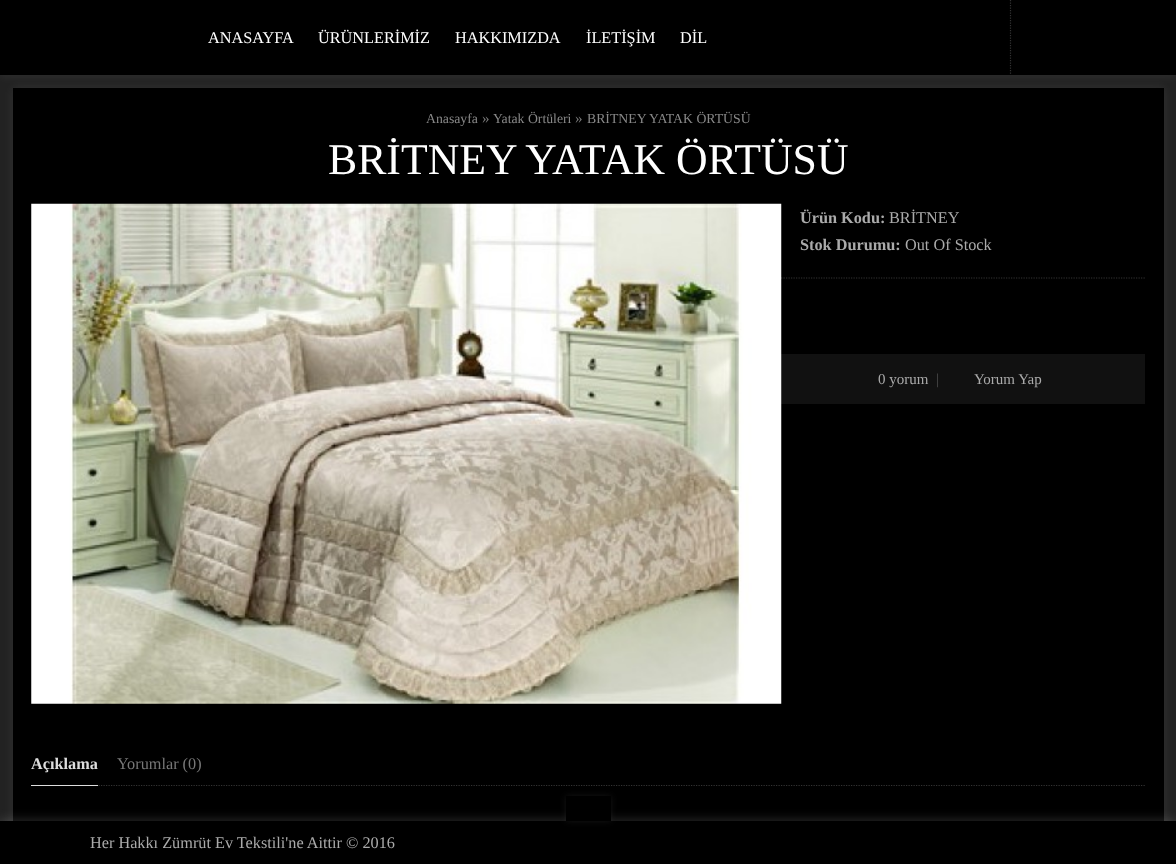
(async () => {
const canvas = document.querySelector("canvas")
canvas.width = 1176
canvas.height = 864
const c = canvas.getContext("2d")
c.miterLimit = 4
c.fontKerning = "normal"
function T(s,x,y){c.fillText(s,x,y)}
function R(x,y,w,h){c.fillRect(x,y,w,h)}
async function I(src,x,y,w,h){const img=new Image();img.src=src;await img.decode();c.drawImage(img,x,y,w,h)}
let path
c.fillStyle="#222"
R(0,0,1176,864)
c.fillStyle="#fafafa14"
c.filter="blur(6px)"
c.beginPath()
c.rect(13,88,1151,773)
c.fill()
c.filter="none"
c.fillStyle="#000"
R(13,88,1151,733)
c.fillStyle="#fafafa14"
c.filter="blur(6px)"
c.beginPath()
c.rect(0,0,1176,75)
c.fill()
c.filter="none"
c.fillStyle="#000"
R(0,0,1176,75)
c.font="16.25px Liberation Serif"
c.fillStyle="#fff"
T("ANASAYFA",208,43)
T("ÜRÜNLERİMİZ",318,43)
T("HAKKIMIZDA",455,43)
T("İLETİŞİM",586,43)
T("DİL",680,43)
path = new Path2D("M1010.5 0v75")
c.strokeStyle="#333"
c.lineWidth=1.2
c.setLineDash([1.25,1.25])
c.stroke(path)
c.font="13.75px Liberation Serif"
c.fillStyle="#888"
T("Anasayfa",426,123)
c.font="15px Liberation Serif"
c.fillStyle="#777"
T("»",482,123)
c.font="13.75px Liberation Serif"
c.fillStyle="#888"
T("Yatak Örtüleri",493,123)
c.font="15px Liberation Serif"
c.fillStyle="#777"
T("»",575,123)
c.font="13.75px Liberation Serif"
c.fillStyle="#888"
T("BRİTNEY YATAK ÖRTÜSÜ",587,123)
c.font="43.75px Liberation Serif"
c.fillStyle="#fff"
T("BRİTNEY YATAK ÖRTÜSÜ",328,174)
path = new Path2D("M431 278h714")
c.stroke(path)
c.fillStyle="#111"
R(781,354,364,50)
await I("1.png",31,203,751,501)
c.font="bold 16.25px Liberation Serif"
c.fillStyle="#aaa"
T("Ürün Kodu:",800,223)
c.font="16.25px Liberation Serif"
T("BRİTNEY",889,223)
c.font="bold 16.25px Liberation Serif"
T("Stok Durumu:",800,250)
c.font="16.25px Liberation Serif"
T("Out Of Stock",905,250)
c.font="15px Liberation Serif"
T("0 yorum",878,384)
c.fillStyle="#4d4d4d"
T("|",936,384)
c.fillStyle="#aaa"
T("Yorum Yap",974,384)
path = new Path2D("M31 785.5h1114")
c.stroke(path)
c.fillStyle="#ddd"
R(31,785,67,1)
c.font="bold 16.25px Liberation Serif"
T("Açıklama",31,769)
c.font="16.25px Liberation Serif"
c.fillStyle="#777"
T("Yorumlar (0)",117,769)
c.fillStyle="#fafafa33"
c.filter="blur(6px)"
c.beginPath()
c.rect(0,821,1176,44)
c.fill()
c.filter="none"
c.fillStyle="#000"
R(0,821,1176,43)
c.fillStyle="#fafafa14"
c.filter="blur(3px)"
c.beginPath()
c.rect(566,796,45,25)
c.fill()
c.filter="none"
c.fillStyle="#000"
R(566,796,45,25)
c.fillStyle="#aaa"
T("Her Hakkı Zümrüt Ev Tekstili'ne Aittir © 2016",90,848)
})()
